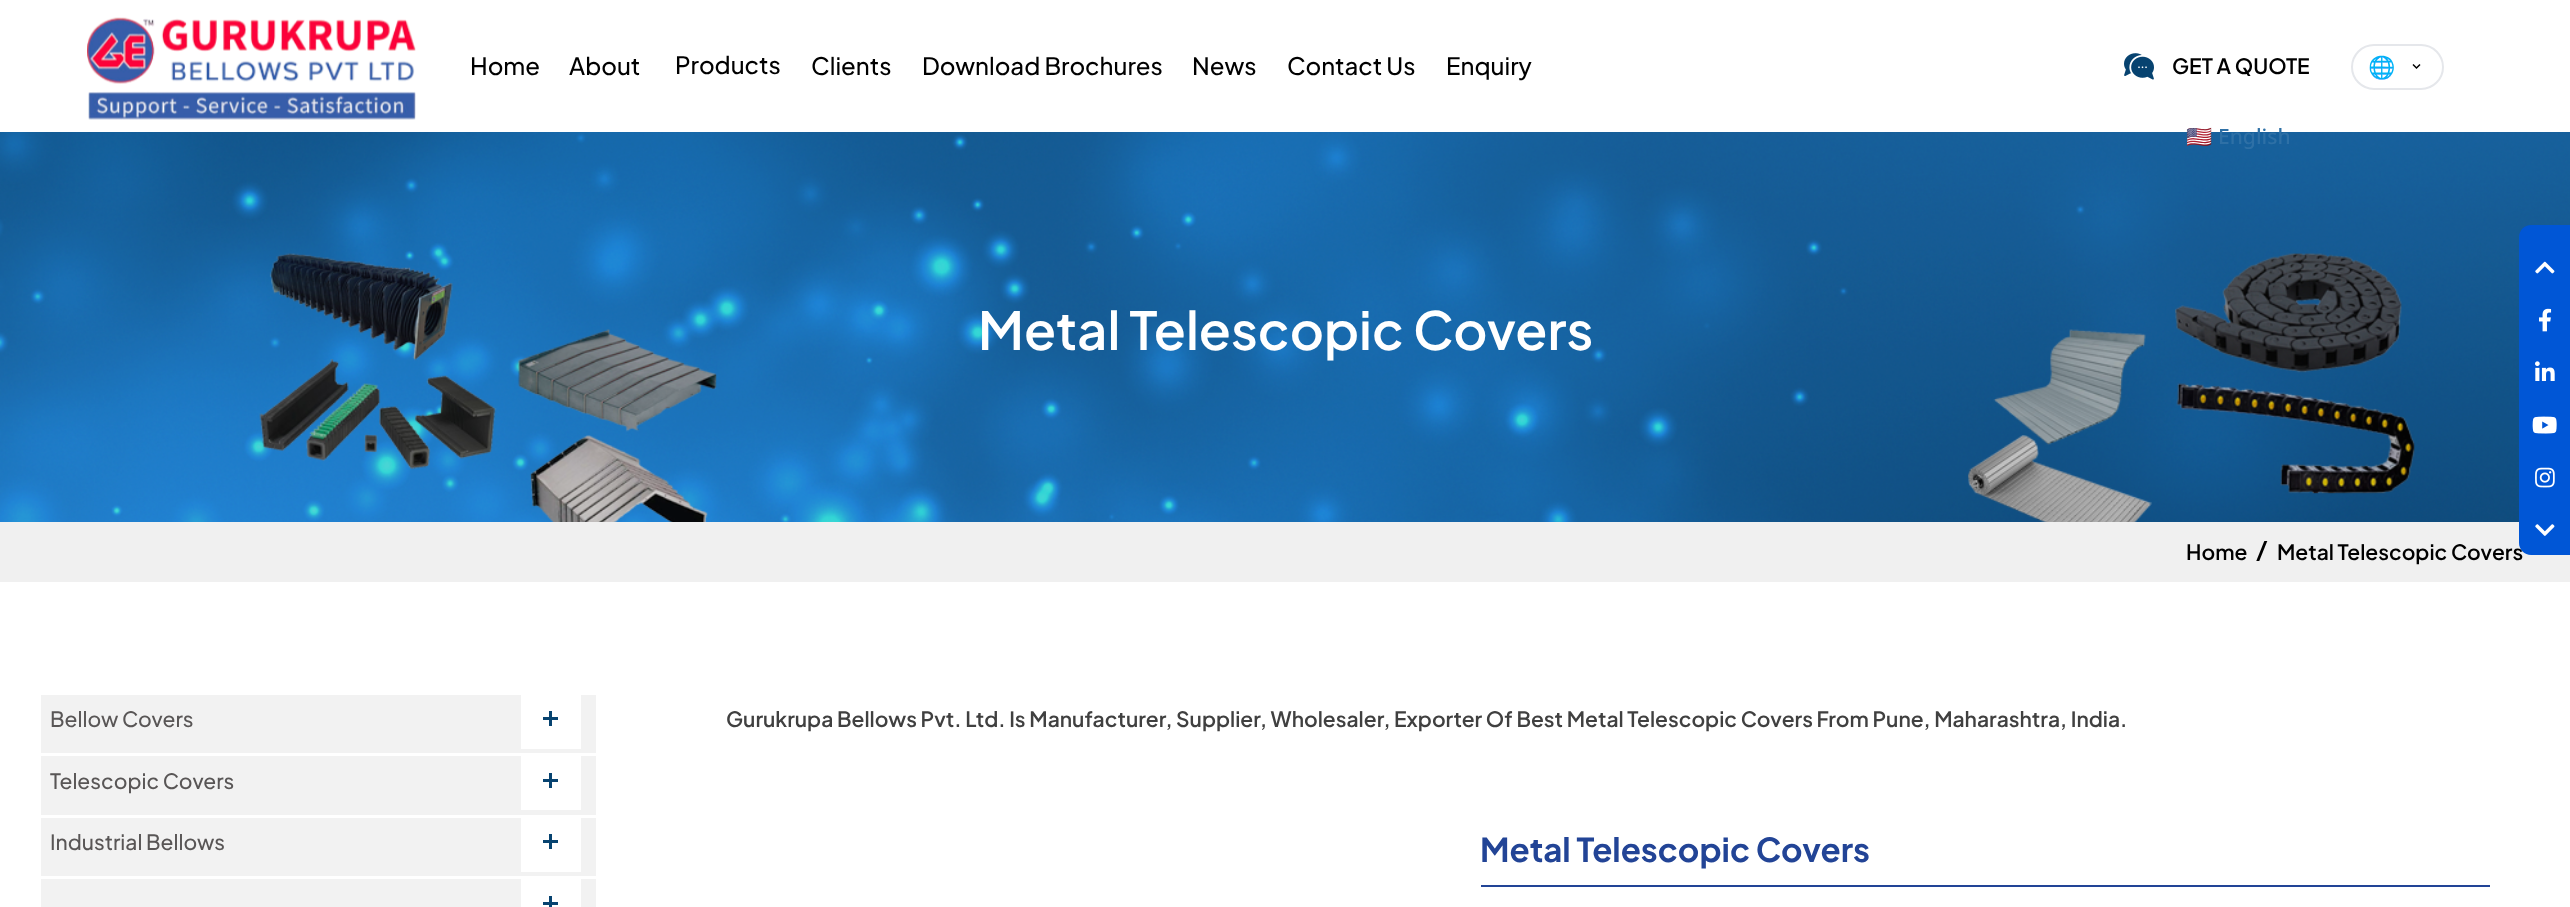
(async () => {
const canvas = document.querySelector("canvas")
canvas.width = 2570
canvas.height = 907
const c = canvas.getContext("2d")
c.miterLimit = 4
c.fontKerning = "normal"
function T(s,x,y){c.fillText(s,x,y)}
function R(x,y,w,h){c.fillRect(x,y,w,h)}
async function I(src,x,y,w,h){const img=new Image();img.src=src;await img.decode();c.drawImage(img,x,y,w,h)}
let path
c.fillStyle="#fff"
R(0,0,2570,907)
await I("1.png",87,17,329,103)
c.font="500 24px Plus Jakarta Sans"
c.fillStyle="#000"
T("Home",470,75)
T("About",569,75)
T("Products",675,74)
T("Clients",811,75)
T("Download Brochures",922,75)
T("News",1192,75)
T("Contact Us",1287,75)
T("Enquiry",1446,75)
await I("2.png",2124,53,30,27)
c.beginPath()
c.roundRect(2352,45,91,44,22)
c.strokeStyle="#e5e7eb"
c.lineWidth=2
c.stroke()
c.font="22px Noto Color Emoji"
T("🌐",2368,75)
path = new Path2D("M2413 64.5l3.5 3.5l3.5-3.5")
c.strokeStyle="#000"
c.lineWidth=1.5
c.stroke(path)
await I("3.png",0,132,2570,390)
c.font="21px Noto Color Emoji"
c.fillStyle="#5b8eb9"
T("🇺🇸",2186,144)
c.font="500 21px Noto Sans"
c.fillStyle="#2e70a6"
T("English",2218,144)
c.font="600 21px Plus Jakarta Sans"
c.fillStyle="#000"
T("GET A QUOTE",2172,74)
c.font="600 52.5px Plus Jakarta Sans"
c.fillStyle="#fff"
T("Metal Telescopic Covers",978,350)
c.fillStyle="#f0f0f0"
R(0,522,2570,60)
c.font="600 21px Plus Jakarta Sans"
c.fillStyle="#000"
T("Metal Telescopic Covers",2277,560)
c.fillStyle="#0056d6"
path = new Path2D("M2531 225h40v330h-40c-6.5 0-12-5.5-12-12v-306c0-6.5 5.5-12 12-12z")
c.fill(path)
await I("4.png",2535,261,20,13)
await I("5.png",2539,308,13,24)
await I("6.png",2535,361,20,20)
await I("7.png",2532,416,25,18)
await I("8.png",2535,467,20,21)
await I("9.png",2535,524,20,12)
c.fillStyle="#000"
T("Home",2186,560)
c.font="600 24px Plus Jakarta Sans"
T("/",2256,558)
c.fillStyle="#f2f2f2"
R(41,695,555,58)
c.font="500 21px Plus Jakarta Sans"
c.fillStyle="#595656"
T("Bellow Covers",50,727)
c.fillStyle="#fff"
R(521,695,60,54)
c.fillStyle="#074370"
R(549,711,3,15)
R(543,717,15,3)
c.fillStyle="#f2f2f2"
R(41,756,555,59)
c.fillStyle="#595656"
T("Telescopic Covers",50,789)
c.fillStyle="#fff"
R(521,756,60,54)
c.fillStyle="#074370"
R(549,773,3,15)
R(543,779,15,3)
c.fillStyle="#f2f2f2"
R(41,818,555,58)
c.fillStyle="#595656"
T("Industrial Bellows",50,850)
c.fillStyle="#fff"
R(521,818,60,54)
c.fillStyle="#074370"
R(549,834,3,15)
R(543,840,15,3)
c.fillStyle="#f2f2f2"
R(41,879,555,28)
c.fillStyle="#fff"
R(521,879,60,28)
c.fillStyle="#074370"
R(549,896,3,11)
R(543,902,15,3)
c.font="600 21px Plus Jakarta Sans"
c.fillStyle="#404040"
T("Gurukrupa Bellows Pvt. Ltd. Is Manufacturer, Supplier, Wholesaler, Exporter Of Best Metal Telescopic Covers From Pune, Maharashtra, India.",726,727)
c.fillStyle="#224496"
R(1481,885,1009,2)
c.font="bold 33px Plus Jakarta Sans"
T("Metal Telescopic Covers",1480,862)
})()
